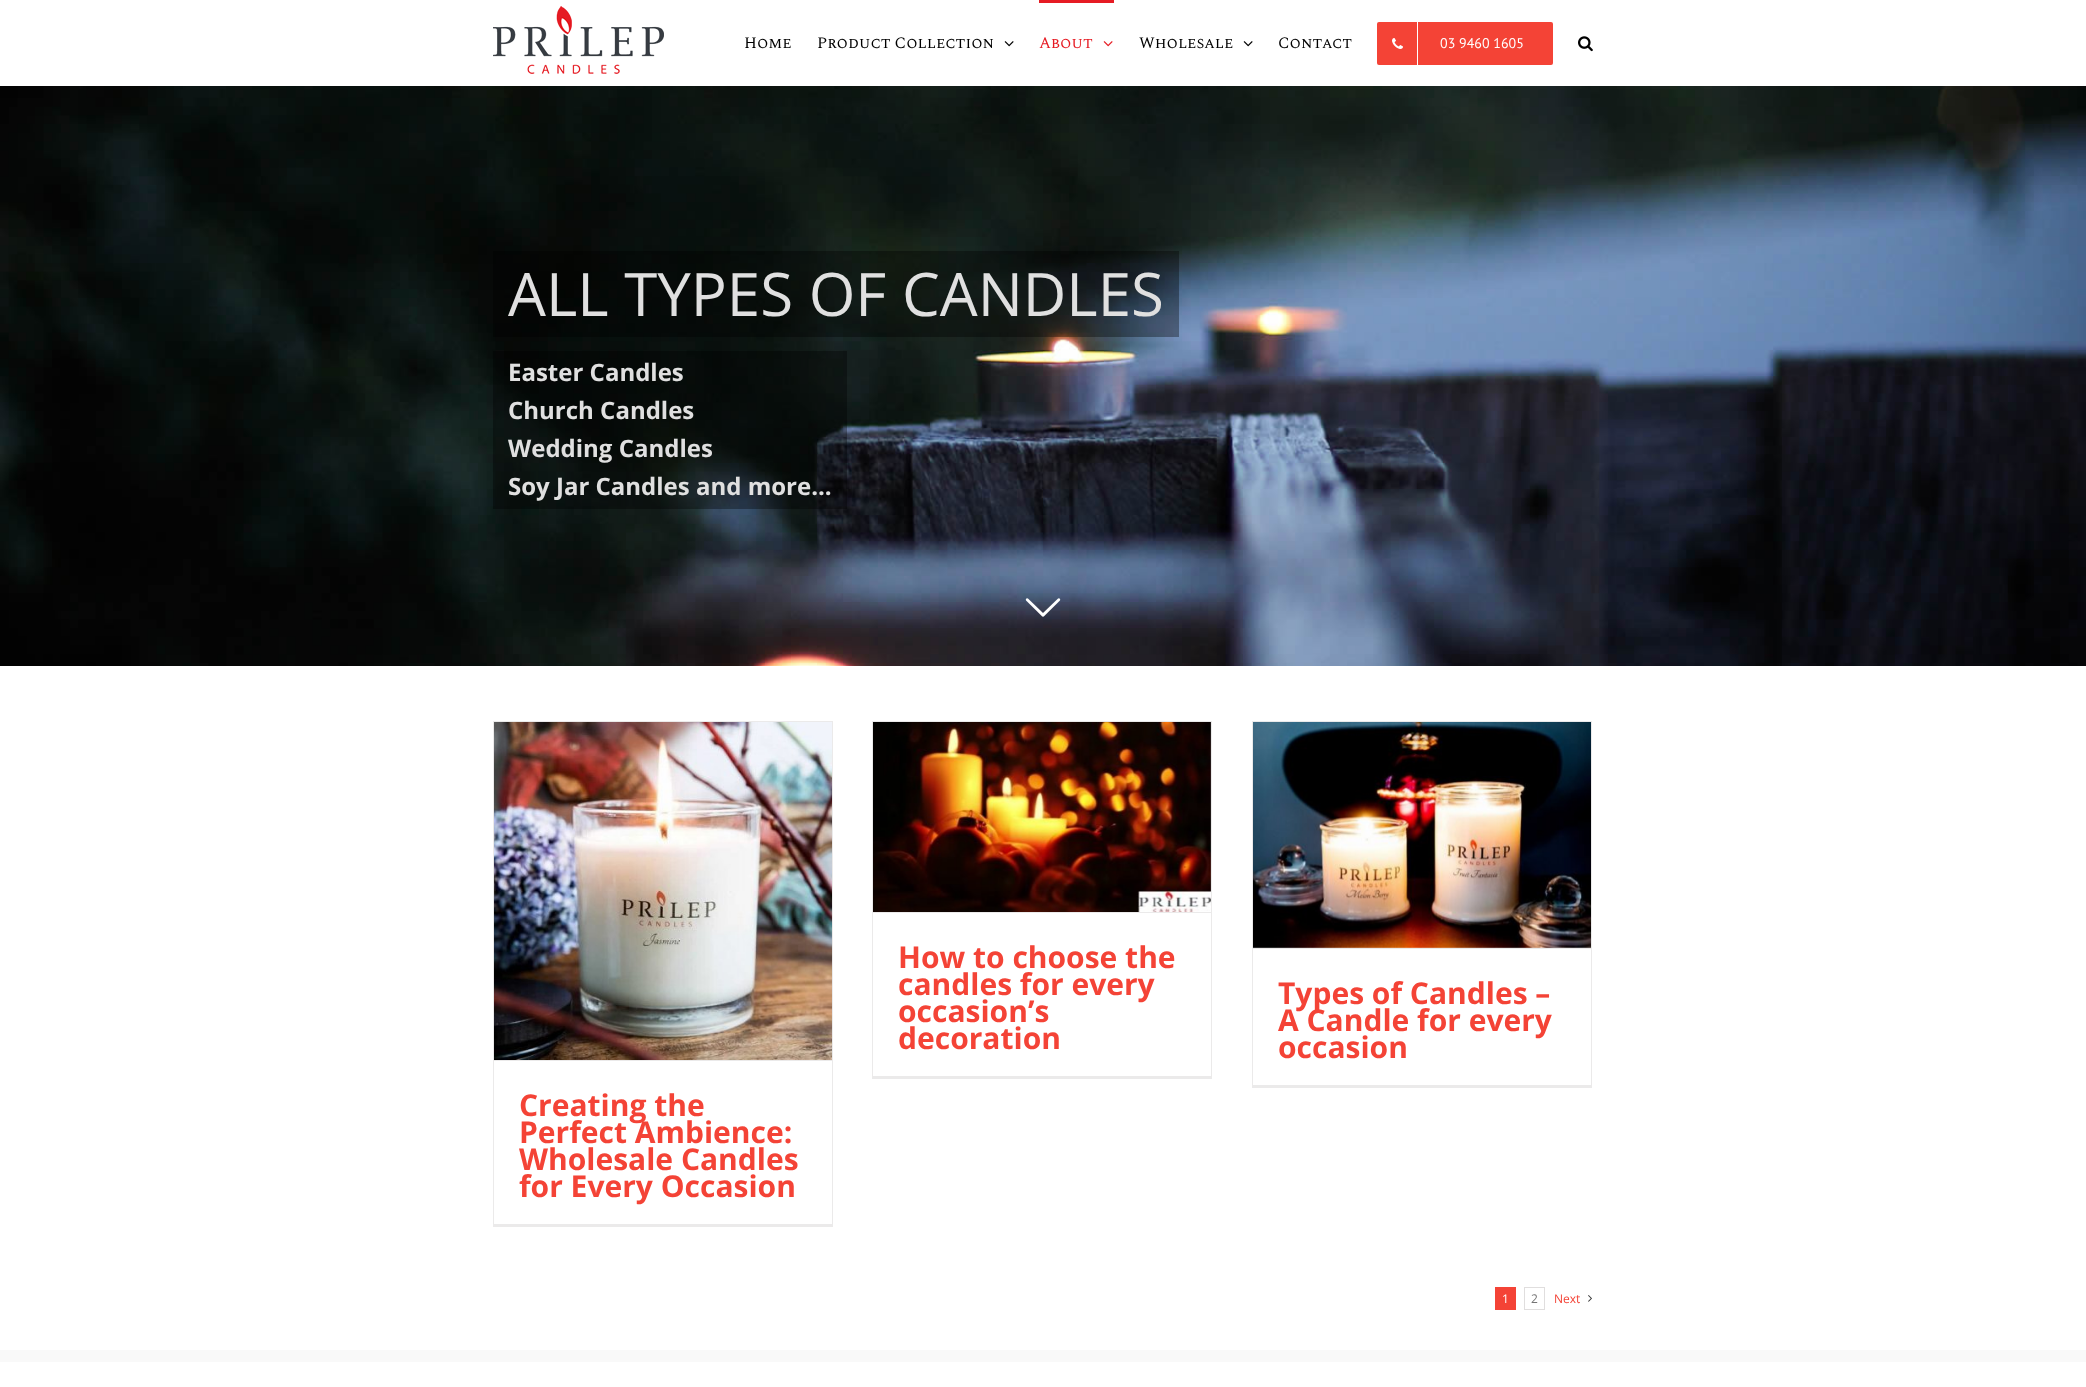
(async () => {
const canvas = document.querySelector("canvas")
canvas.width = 2086
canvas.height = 1387
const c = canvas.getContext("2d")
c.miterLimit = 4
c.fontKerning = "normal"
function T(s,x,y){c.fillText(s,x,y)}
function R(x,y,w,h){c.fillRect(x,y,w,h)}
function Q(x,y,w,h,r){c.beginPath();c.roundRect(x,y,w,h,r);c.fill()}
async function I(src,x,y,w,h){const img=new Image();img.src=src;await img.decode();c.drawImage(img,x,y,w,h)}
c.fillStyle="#fff"
R(0,0,2086,1387)
await I("1.png",493,6,171,68)
c.font="16px Spectral SC"
c.fillStyle="#000"
T("Home",744,48)
T("Product Collection",817,48)
await I("2.png",1004,41,10,6)
c.fillStyle="#e61b23"
R(1039,0,75,3)
T("About",1039,48)
await I("3.png",1103,41,10,6)
c.fillStyle="#000"
T("Wholesale",1139,48)
await I("2.png",1243,41,10,6)
T("Contact",1278,48)
c.fillStyle="#f44336"
Q(1377,22,176,43,2)
c.fillStyle="#fff"
R(1417,22,1,43)
await I("4.png",1392,38,11,11)
c.font="14px PT Sans"
T("03 9460 1605",1440,48)
await I("5.png",1578,36,15,16)
await I("6.png",0,86,2086,580)
c.fillStyle="#00000059"
R(493,251,686,86)
c.font="60px Open Sans"
c.fillStyle="#e0e0e0"
T("ALL TYPES OF CANDLES",508,316)
c.fillStyle="#00000059"
R(493,351,354,158)
c.font="bold 24px Open Sans"
c.fillStyle="#e0e0e0"
T("Easter Candles",508,381)
T("Church Candles",508,419)
T("Wedding Candles",508,457)
T("Soy Jar Candles and more...",508,495)
await I("7.png",1025,598,36,19)
c.fillStyle="#ebeaea"
R(872,721,340,1)
R(1211,721,1,358)
R(872,1076,340,3)
R(872,721,1,358)
R(873,912,338,1)
await I("8.png",873,722,338,190)
c.font="bold 30px Open Sans"
c.fillStyle="#f44336"
T("How to choose the",898,968)
T("candles for every",898,995)
T("occasion’s",898,1022)
T("decoration",898,1049)
c.fillStyle="#ebeaea"
R(1252,721,340,1)
R(1591,721,1,367)
R(1252,1085,340,3)
R(1252,721,1,367)
R(1253,948,338,1)
await I("9.png",1253,722,338,226)
c.fillStyle="#f44336"
T("Types of Candles –",1278,1004)
T("A Candle for every",1278,1031)
T("occasion",1278,1058)
c.fillStyle="#ebeaea"
R(493,721,340,1)
R(832,721,1,506)
R(493,1224,340,3)
R(493,721,1,506)
R(494,1060,338,1)
await I("10.png",494,722,338,338)
c.fillStyle="#f44336"
T("Creating the",519,1116)
T("Perfect Ambience:",519,1143)
T("Wholesale Candles",519,1170)
T("for Every Occasion",519,1197)
R(1495,1287,21,23)
c.font="12px Open Sans"
c.fillStyle="#fff"
T("1",1502,1303)
c.strokeStyle="#e0dede"
c.strokeRect(1524.5,1287.5,20,22)
c.fillStyle="#747474"
T("2",1531,1303)
c.fillStyle="#f44336"
T("Next",1554,1303)
await I("11.png",1588,1295,4,7)
c.fillStyle="#f9f9f9"
R(0,1350,2086,12)
})()
